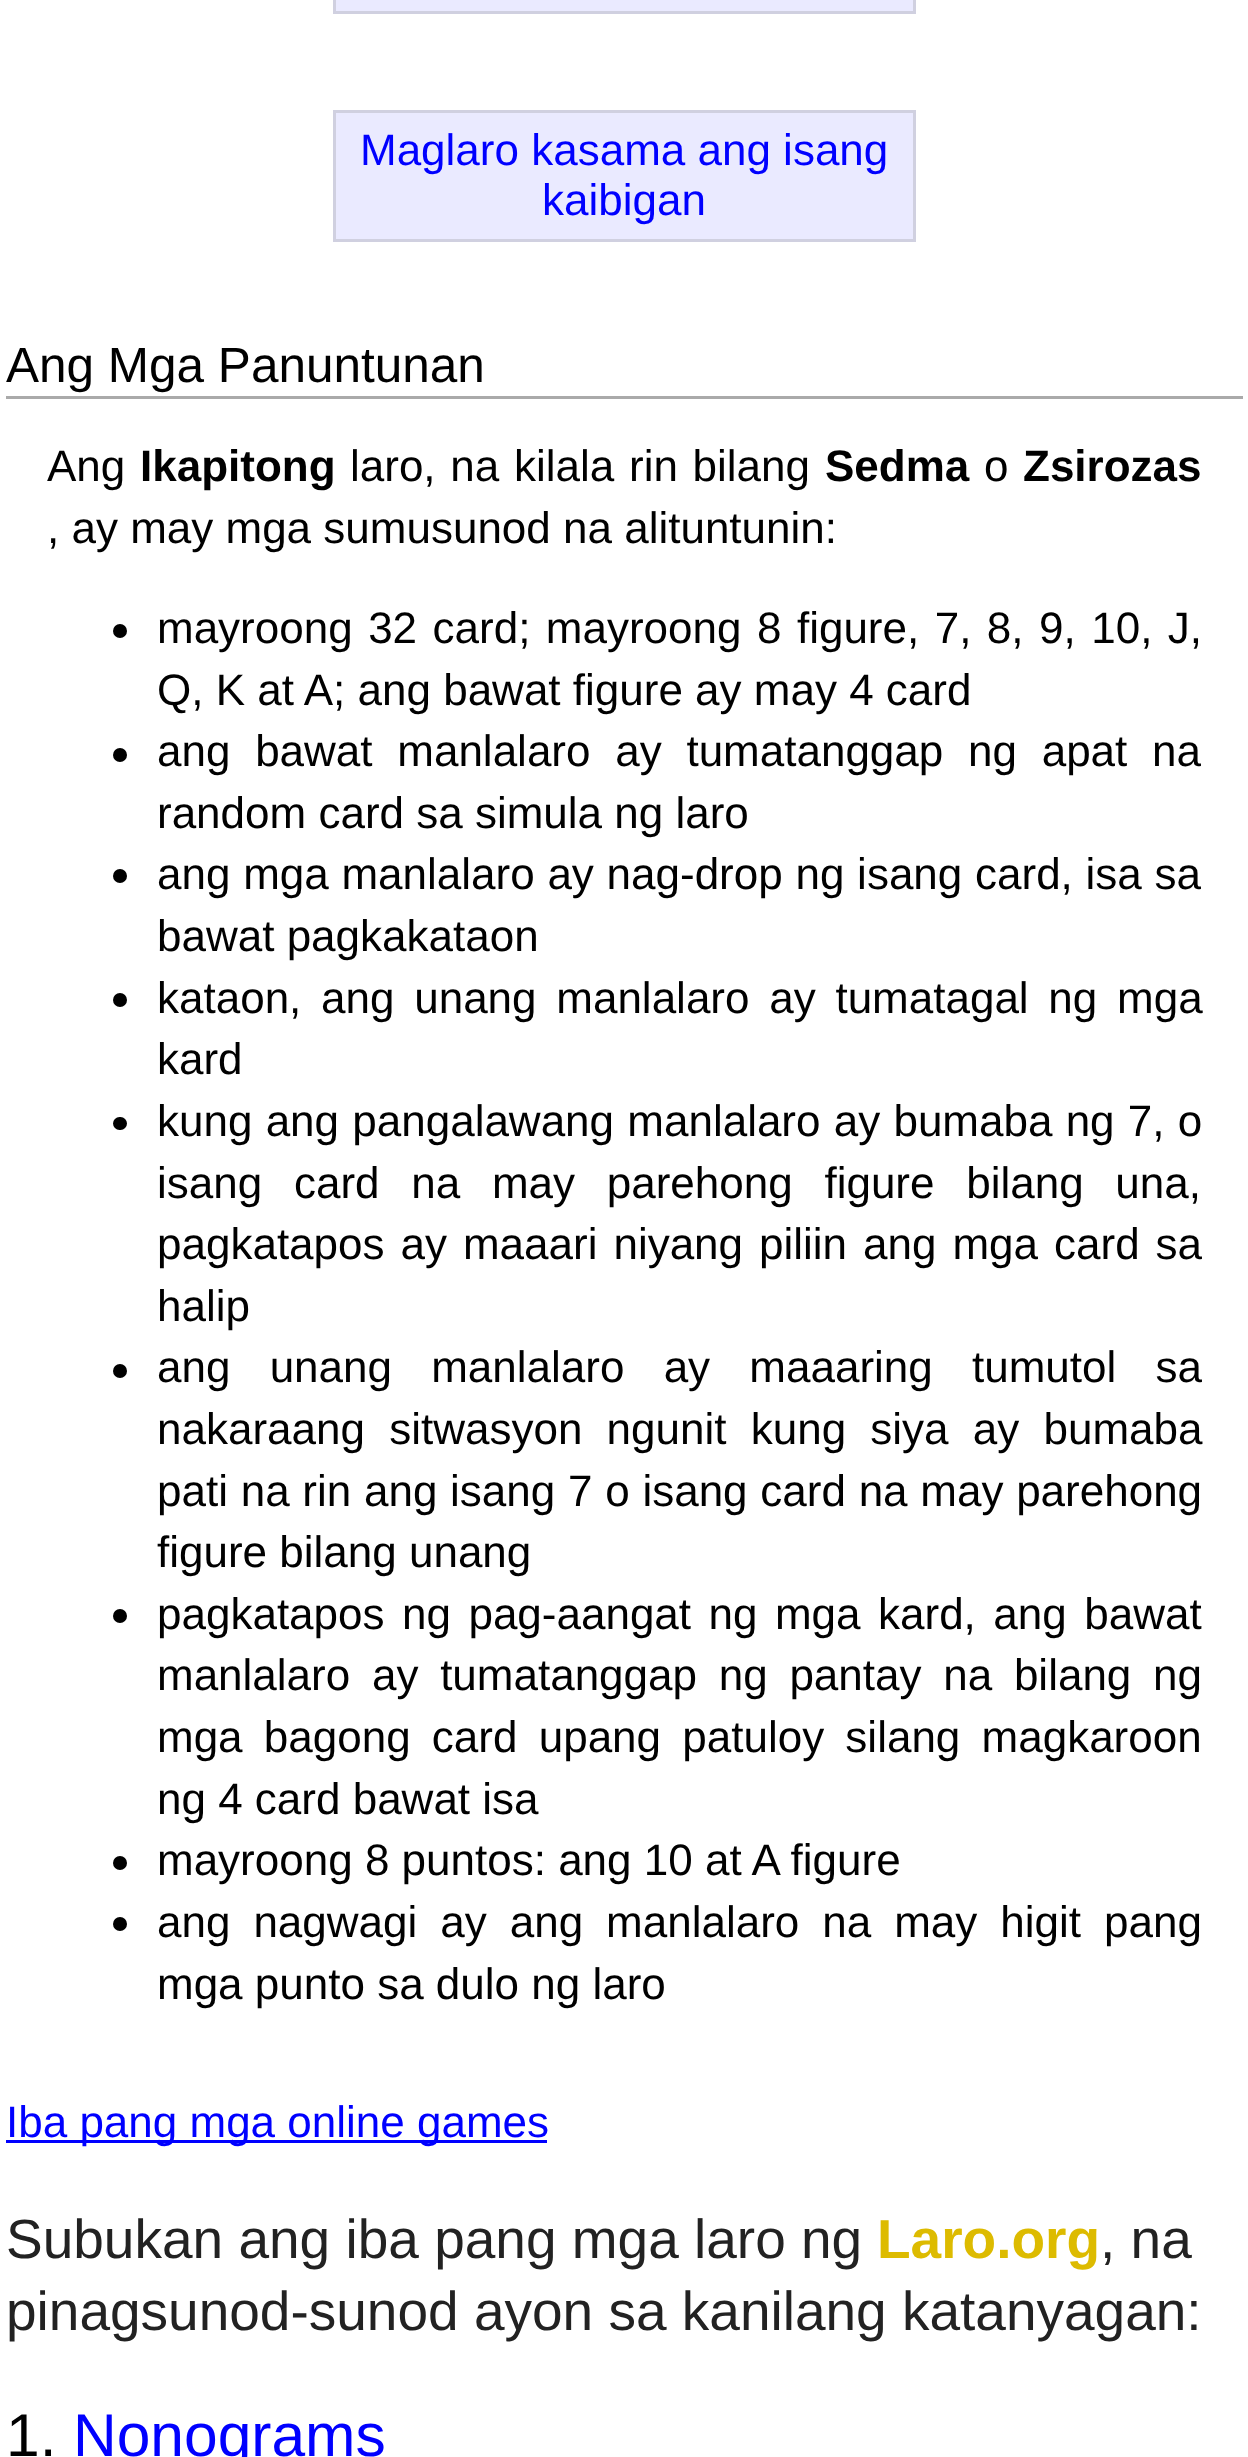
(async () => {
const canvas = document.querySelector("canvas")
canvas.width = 1248
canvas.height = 2457
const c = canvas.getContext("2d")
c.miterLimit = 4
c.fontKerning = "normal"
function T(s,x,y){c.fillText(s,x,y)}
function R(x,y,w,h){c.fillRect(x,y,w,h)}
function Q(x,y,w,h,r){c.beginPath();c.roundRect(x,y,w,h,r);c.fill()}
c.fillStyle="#fff"
R(0,0,1248,2457)
c.fillStyle="#eaeaff"
c.beginPath()
c.rect(334.5,-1.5,580,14)
c.fill()
c.strokeStyle="#d0d0e0"
c.lineWidth=3
c.stroke()
c.beginPath()
c.rect(334.5,111.5,580,129)
c.fill()
c.stroke()
c.font="44px Liberation Sans"
c.fillStyle="#00f"
T("Maglaro kasama ang isang",360,165)
T("kaibigan",542,215)
c.fillStyle="#aaa"
R(6,396,1237,3)
c.font="49.5px Liberation Sans"
c.fillStyle="#000"
T("Ang Mga Panuntunan",6,382)
c.font="44px Liberation Sans"
T("Ang",47,481)
c.font="bold 44px Liberation Sans"
T("Ikapitong",140,481)
c.wordSpacing="2.5px"
c.font="44px Liberation Sans"
T("laro, na kilala rin bilang",350,481)
c.wordSpacing="0px"
c.font="bold 44px Liberation Sans"
T("Sedma",825,481)
c.font="44px Liberation Sans"
T("o",984,481)
c.font="bold 44px Liberation Sans"
T("Zsirozas",1023,481)
c.font="44px Liberation Sans"
T(", ay may mga sumusunod na alituntunin:",47,543)
c.beginPath()
c.arc(120,631,7,0,7)
c.fill()
c.wordSpacing="3.25px"
T("mayroong 32 card; mayroong 8 figure, 7, 8, 9, 10, J,",157,643)
c.wordSpacing="0px"
T("Q, K at A; ang bawat figure ay may 4 card",157,705)
c.beginPath()
c.arc(120,755,7,0,7)
c.fill()
c.wordSpacing="12.5px"
T("ang bawat manlalaro ay tumatanggap ng apat na",157,766)
c.wordSpacing="0px"
T("random card sa simula ng laro",157,828)
c.beginPath()
c.arc(120,876,7,0,7)
c.fill()
c.wordSpacing="0.5px"
T("ang mga manlalaro ay nag-drop ng isang card, isa sa",157,889)
c.wordSpacing="0px"
T("bawat pagkakataon",157,951)
c.beginPath()
c.arc(120,1000,7,0,7)
c.fill()
c.wordSpacing="7.5px"
T("kataon, ang unang manlalaro ay tumatagal ng mga",157,1013)
c.wordSpacing="0px"
T("kard",157,1074)
Q(113,1117,14,13,6.5)
c.wordSpacing="1px"
T("kung ang pangalawang manlalaro ay bumaba ng 7, o",157,1136)
c.wordSpacing="19.5px"
T("isang card na may parehong figure bilang una,",157,1198)
c.wordSpacing="3.75px"
T("pagkatapos ay maaari niyang piliin ang mga card sa",157,1259)
c.wordSpacing="0px"
T("halip",157,1321)
c.beginPath()
c.arc(120,1371,7,0,7)
c.fill()
c.wordSpacing="27px"
T("ang unang manlalaro ay maaaring tumutol sa",157,1382)
c.wordSpacing="12px"
T("nakaraang sitwasyon ngunit kung siya ay bumaba",157,1444)
c.wordSpacing="0.5px"
T("pati na rin ang isang 7 o isang card na may parehong",157,1506)
c.wordSpacing="0px"
T("figure bilang unang",157,1567)
c.beginPath()
c.arc(120,1616,7,0,7)
c.fill()
c.wordSpacing="5.25px"
T("pagkatapos ng pag-aangat ng mga kard, ang bawat",157,1629)
c.wordSpacing="9.5px"
T("manlalaro ay tumatanggap ng pantay na bilang ng",157,1690)
c.wordSpacing="9px"
T("mga bagong card upang patuloy silang magkaroon",157,1752)
c.wordSpacing="0px"
T("ng 4 card bawat isa",157,1814)
c.beginPath()
c.arc(120,1863,7,0,7)
c.fill()
T("mayroong 8 puntos: ang 10 at A figure",157,1875)
c.beginPath()
c.arc(120,1924,7,0,7)
c.fill()
c.wordSpacing="10.75px"
T("ang nagwagi ay ang manlalaro na may higit pang",157,1937)
c.wordSpacing="0px"
T("mga punto sa dulo ng laro",157,1999)
c.fillStyle="#00f"
R(6,2140,541,3)
T("Iba pang mga online games",6,2137)
c.font="55px Liberation Sans"
c.fillStyle="#222"
T("Subukan ang iba pang mga laro ng",6,2258)
c.font="bold 55px Liberation Sans"
c.fillStyle="#db0"
T("Laro.org",877,2258)
c.font="55px Liberation Sans"
c.fillStyle="#222"
T(", na",1100,2258)
T("pinagsunod-sunod ayon sa kanilang katanyagan:",6,2330)
c.font="60.5px Liberation Sans"
c.fillStyle="#000"
T("1.",6,2456)
c.fillStyle="#00f"
T("Nonograms",73,2456)
})()
